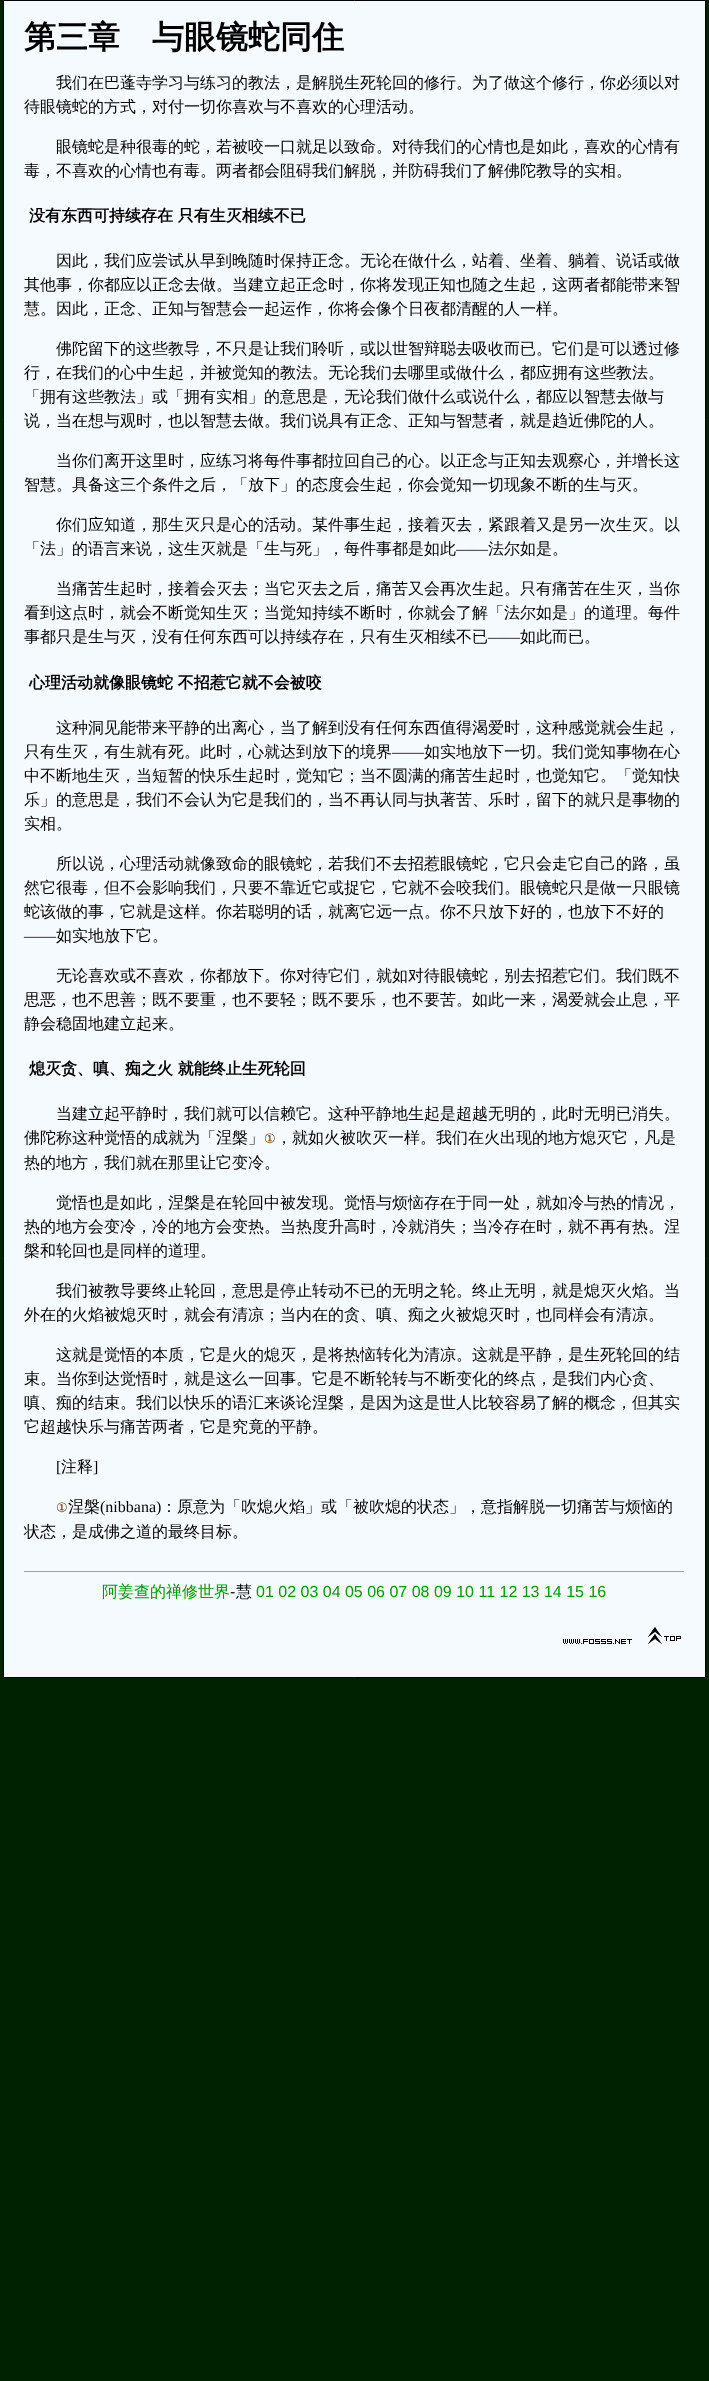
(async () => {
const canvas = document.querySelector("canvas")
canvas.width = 709
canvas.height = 2381
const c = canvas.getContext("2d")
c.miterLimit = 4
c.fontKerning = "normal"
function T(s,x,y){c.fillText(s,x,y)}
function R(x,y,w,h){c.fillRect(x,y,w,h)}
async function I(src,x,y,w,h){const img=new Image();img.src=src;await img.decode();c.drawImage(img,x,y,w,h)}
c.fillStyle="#020"
R(0,0,709,2381)
c.fillStyle="#f5fafe"
c.beginPath()
c.rect(3.5,.5,702,1677)
c.fill()
c.strokeStyle="#000"
c.stroke()
c.font="bold 32px WenQuanYi Zen Hei"
c.fillStyle="#000"
T("第三章　与眼镜蛇同住",24,48)
c.font="500 16px WenQuanYi Zen Hei"
T("我们在巴蓬寺学习与练习的教法，是解脱生死轮回的修行。为了做这个修行，你必须以对",56,88)
T("待眼镜蛇的方式，对付一切你喜欢与不喜欢的心理活动。",24,112)
T("眼镜蛇是种很毒的蛇，若被咬一口就足以致命。对待我们的心情也是如此，喜欢的心情有",56,152)
T("毒，不喜欢的心情也有毒。两者都会阻碍我们解脱，并防碍我们了解佛陀教导的实相。",24,176)
c.font="bold 16px WenQuanYi Zen Hei"
T("没有东西可持续存在 只有生灭相续不已",29,221)
c.font="500 16px WenQuanYi Zen Hei"
T("因此，我们应尝试从早到晚随时保持正念。无论在做什么，站着、坐着、躺着、说话或做",56,266)
T("其他事，你都应以正念去做。当建立起正念时，你将发现正知也随之生起，这两者都能带来智",24,290)
T("慧。因此，正念、正知与智慧会一起运作，你将会像个日夜都清醒的人一样。",24,314)
T("佛陀留下的这些教导，不只是让我们聆听，或以世智辩聪去吸收而已。它们是可以透过修",56,354)
T("行，在我们的心中生起，并被觉知的教法。无论我们去哪里或做什么，都应拥有这些教法。",24,378)
T("「拥有这些教法」或「拥有实相」的意思是，无论我们做什么或说什么，都应以智慧去做与",24,402)
T("说，当在想与观时，也以智慧去做。我们说具有正念、正知与智慧者，就是趋近佛陀的人。",24,426)
T("当你们离开这里时，应练习将每件事都拉回自己的心。以正念与正知去观察心，并增长这",56,466)
T("智慧。具备这三个条件之后，「放下」的态度会生起，你会觉知一切现象不断的生与灭。",24,490)
T("你们应知道，那生灭只是心的活动。某件事生起，接着灭去，紧跟着又是另一次生灭。以",56,530)
T("「法」的语言来说，这生灭就是「生与死」，每件事都是如此",24,554)
c.font="16px Liberation Serif"
T("——",456,554)
c.font="500 16px WenQuanYi Zen Hei"
T("法尔如是。",488,554)
T("当痛苦生起时，接着会灭去；当它灭去之后，痛苦又会再次生起。只有痛苦在生灭，当你",56,594)
T("看到这点时，就会不断觉知生灭；当觉知持续不断时，你就会了解「法尔如是」的道理。每件",24,618)
T("事都只是生与灭，没有任何东西可以持续存在，只有生灭相续不已",24,642)
c.font="16px Liberation Serif"
T("——",488,642)
c.font="500 16px WenQuanYi Zen Hei"
T("如此而已。",520,642)
c.font="bold 16px WenQuanYi Zen Hei"
T("心理活动就像眼镜蛇 不招惹它就不会被咬",29,688)
c.font="500 16px WenQuanYi Zen Hei"
T("这种洞见能带来平静的出离心，当了解到没有任何东西值得渴爱时，这种感觉就会生起，",56,733)
T("只有生灭，有生就有死。此时，心就达到放下的境界",24,757)
c.font="16px Liberation Serif"
T("——",392,757)
c.font="500 16px WenQuanYi Zen Hei"
T("如实地放下一切。我们觉知事物在心",424,757)
T("中不断地生灭，当短暂的快乐生起时，觉知它；当不圆满的痛苦生起时，也觉知它。「觉知快",24,781)
T("乐」的意思是，我们不会认为它是我们的，当不再认同与执著苦、乐时，留下的就只是事物的",24,805)
T("实相。",24,829)
T("所以说，心理活动就像致命的眼镜蛇，若我们不去招惹眼镜蛇，它只会走它自己的路，虽",56,869)
T("然它很毒，但不会影响我们，只要不靠近它或捉它，它就不会咬我们。眼镜蛇只是做一只眼镜",24,893)
T("蛇该做的事，它就是这样。你若聪明的话，就离它远一点。你不只放下好的，也放下不好的",24,917)
c.font="16px Liberation Serif"
T("——",24,941)
c.font="500 16px WenQuanYi Zen Hei"
T("如实地放下它。",56,941)
T("无论喜欢或不喜欢，你都放下。你对待它们，就如对待眼镜蛇，别去招惹它们。我们既不",56,981)
T("思恶，也不思善；既不要重，也不要轻；既不要乐，也不要苦。如此一来，渴爱就会止息，平",24,1005)
T("静会稳固地建立起来。",24,1029)
c.font="bold 16px WenQuanYi Zen Hei"
T("熄灭贪、嗔、痴之火 就能终止生死轮回",29,1074)
c.font="500 16px WenQuanYi Zen Hei"
T("当建立起平静时，我们就可以信赖它。这种平静地生起是超越无明的，此时无明已消失。",56,1119)
T("佛陀称这种觉悟的成就为「涅槃」",24,1143)
c.font="13px DejaVu Sans"
c.fillStyle="#630"
T("①",264,1143)
c.font="500 16px WenQuanYi Zen Hei"
c.fillStyle="#000"
T("，就如火被吹灭一样。我们在火出现的地方熄灭它，凡是",276,1143)
T("热的地方，我们就在那里让它变冷。",24,1168)
T("觉悟也是如此，涅槃是在轮回中被发现。觉悟与烦恼存在于同一处，就如冷与热的情况，",56,1208)
T("热的地方会变冷，冷的地方会变热。当热度升高时，冷就消失；当冷存在时，就不再有热。涅",24,1232)
T("槃和轮回也是同样的道理。",24,1256)
T("我们被教导要终止轮回，意思是停止转动不已的无明之轮。终止无明，就是熄灭火焰。当",56,1296)
T("外在的火焰被熄灭时，就会有清凉；当内在的贪、嗔、痴之火被熄灭时，也同样会有清凉。",24,1320)
T("这就是觉悟的本质，它是火的熄灭，是将热恼转化为清凉。这就是平静，是生死轮回的结",56,1360)
T("束。当你到达觉悟时，就是这么一回事。它是不断轮转与不断变化的终点，是我们内心贪、",24,1384)
T("嗔、痴的结束。我们以快乐的语汇来谈论涅槃，是因为这是世人比较容易了解的概念，但其实",24,1408)
T("它超越快乐与痛苦两者，它是究竟的平静。",24,1432)
c.font="16px Liberation Serif"
T("[",56,1472)
c.font="500 16px WenQuanYi Zen Hei"
T("注释",61,1472)
c.font="16px Liberation Serif"
T("]",93,1472)
c.font="13px DejaVu Sans"
c.fillStyle="#630"
T("①",56,1512)
c.font="500 16px WenQuanYi Zen Hei"
c.fillStyle="#000"
T("涅槃",68,1512)
c.font="16px Liberation Serif"
T("(nibbana)",100,1512)
c.font="500 16px WenQuanYi Zen Hei"
T("：原意为「吹熄火焰」或「被吹熄的状态」，意指解脱一切痛苦与烦恼的",161,1512)
T("状态，是成佛之道的最终目标。",24,1537)
c.fillStyle="#9f9f9f"
R(24,1571,661,1)
c.fillStyle="#eee"
R(684,1571,1,1)
c.fillStyle="#090"
T("阿姜查的禅修世界",102,1597)
c.font="16px Liberation Sans"
c.fillStyle="#000"
T("-",230,1597)
c.font="500 16px WenQuanYi Zen Hei"
T("慧",236,1597)
c.font="16px Liberation Sans"
c.fillStyle="#090"
T("01 02 03 04 05 06 07 08 09 10 11 12 13 14 15 16",256,1597)
await I("1.png",563,1639,69,5)
await I("2.png",648,1627,35,18)
})()
